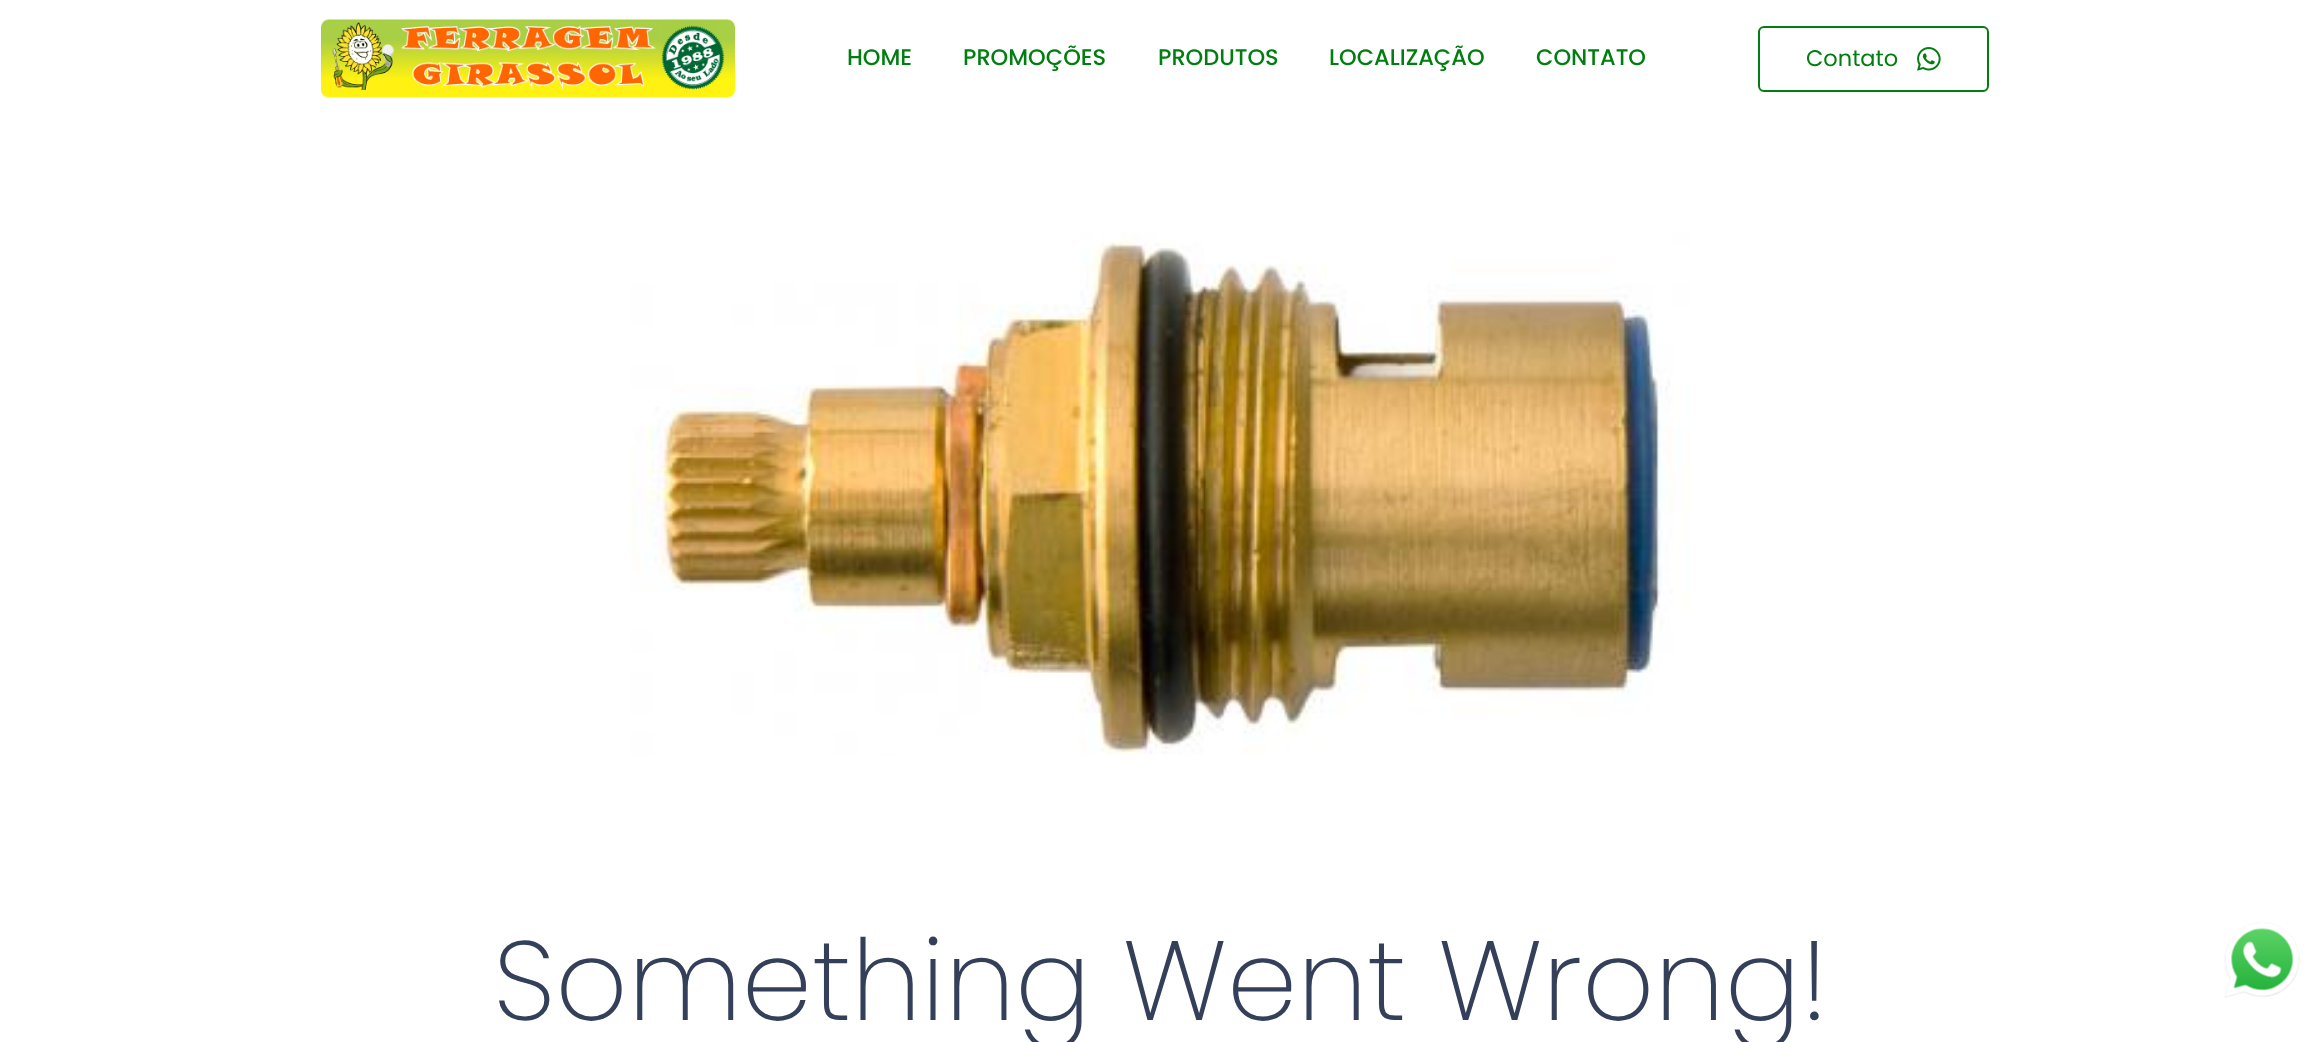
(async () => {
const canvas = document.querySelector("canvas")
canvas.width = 2321
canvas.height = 1042
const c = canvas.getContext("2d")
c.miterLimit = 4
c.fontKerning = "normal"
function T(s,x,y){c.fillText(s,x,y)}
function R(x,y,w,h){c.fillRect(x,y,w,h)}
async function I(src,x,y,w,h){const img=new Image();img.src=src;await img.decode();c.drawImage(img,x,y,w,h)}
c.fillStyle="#fff"
R(0,0,2321,1042)
await I("1.png",321,19,414,79)
c.font="500 22.5px Poppins"
c.fillStyle="#007e10"
T("HOME",847,65)
T("PROMOÇÕES",963,65)
T("PRODUTOS",1158,65)
T("LOCALIZAÇÃO",1329,65)
T("CONTATO",1536,65)
c.beginPath()
c.roundRect(1759,27,229,64,5)
c.strokeStyle="#007e10"
c.lineWidth=2
c.stroke()
c.font="22.5px Poppins"
T("Contato",1806,66)
await I("2.png",1917,47,24,24)
await I("3.png",631,233,1060,523)
c.font="200 112.5px Poppins"
c.fillStyle="#343f5a"
T("Something Went Wrong!",493,1020)
await I("4.png",2224,922,76,76)
})()
